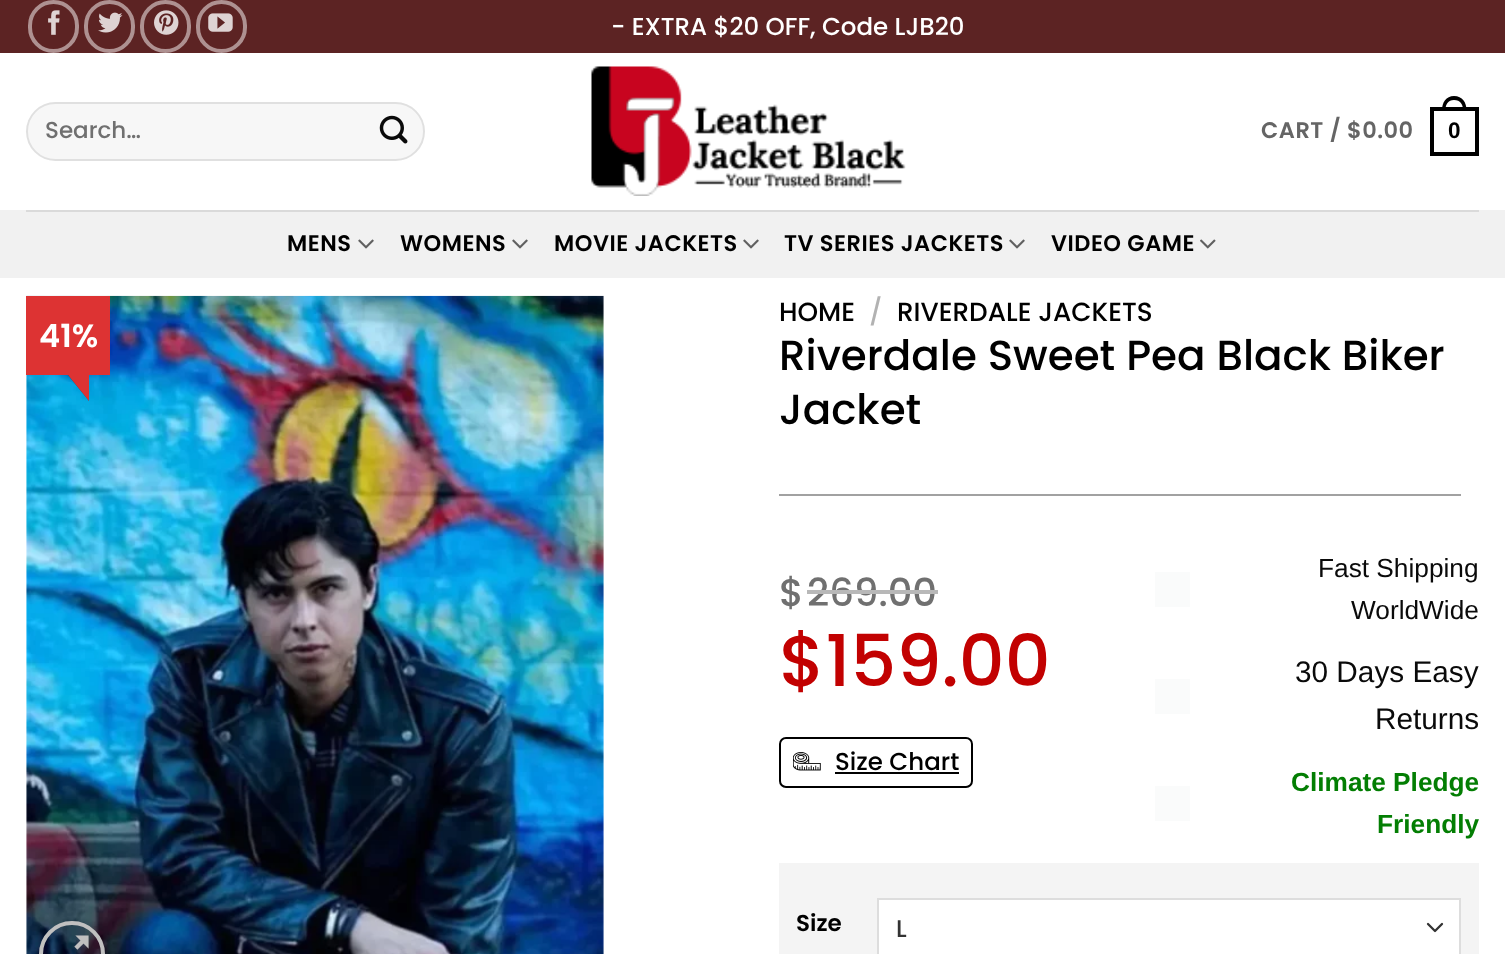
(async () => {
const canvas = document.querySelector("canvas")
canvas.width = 1505
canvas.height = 954
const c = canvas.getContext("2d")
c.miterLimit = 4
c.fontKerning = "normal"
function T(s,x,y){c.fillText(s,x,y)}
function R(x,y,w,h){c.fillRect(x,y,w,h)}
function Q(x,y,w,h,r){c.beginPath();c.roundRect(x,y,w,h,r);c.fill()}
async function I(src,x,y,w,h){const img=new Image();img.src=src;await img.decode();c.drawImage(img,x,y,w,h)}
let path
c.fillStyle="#fff"
R(0,0,1505,954)
c.fillStyle="#5c2323"
R(0,0,1505,53)
c.beginPath()
c.roundRect(30,2,47,49,23.5)
c.strokeStyle="#ae9191"
c.lineWidth=4
c.stroke()
await I("1.png",48,10,12,25)
c.beginPath()
c.roundRect(86,2,47,49,23.5)
c.stroke()
await I("2.png",98,12,25,21)
c.beginPath()
c.roundRect(142,2,47,49,23.5)
c.stroke()
await I("3.png",154,10,25,25)
c.beginPath()
c.roundRect(198,2,47,49,23.5)
c.stroke()
await I("4.png",208,13,25,19)
c.font="500 24.5px Poppins"
c.fillStyle="#fff"
T("- EXTRA $20 OFF, Code LJB20",611,35)
c.fillStyle="#f7f7f7"
Q(26,102,399,59,29.5)
c.beginPath()
c.roundRect(27,103,397,57,28.5)
c.strokeStyle="#00000017"
c.lineWidth=2
c.stroke()
c.font="500 23px Poppins"
c.fillStyle="#707070"
T("Search…",45,138)
await I("5.png",379,115,29,29)
await I("6.png",591,66,315,130)
c.letterSpacing="0.5px"
c.font="600 22.5px Poppins"
c.fillStyle="#656565"
T("CART / $0.00",1261,138)
c.strokeStyle="#000"
c.lineWidth=4
c.strokeRect(1432,109,45,45)
c.fillStyle="#000"
path = new Path2D("M1454 96c8.5 0 12.5 6.5 12.5 14h-24.5c0-7.5 4-14 12-14zm0 4c6.5 0 9 4.5 9 10h-17.5c0-5.5 2.5-10 8.5-10z")
c.fill(path,"evenodd")
c.font="bold 22.5px Liberation Sans"
T("0",1448,138)
await I("9.png",26,295,578,659)
c.save()
path = new Path2D("M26 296h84v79h-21v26l-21-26h-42z")
c.clip(path)
c.fillStyle="#00000080"
c.filter="blur(10.5px)"
c.beginPath()
c.rect(26,303,84,105)
c.fill()
c.filter="none"
c.restore()
c.fillStyle="#f1f1f1"
R(0,210,1505,68)
c.fillStyle="#dadada"
R(26,210,1453,2)
c.font="600 22.5px Poppins"
c.fillStyle="#000"
T("MENS",287,251)
await I("7.png",358,239,16,10)
T("WOMENS",400,251)
await I("7.png",512,239,16,10)
T("MOVIE JACKETS",554,251)
await I("7.png",743,239,16,10)
T("TV SERIES JACKETS",784,251)
await I("7.png",1009,239,16,10)
T("VIDEO GAME",1051,251)
await I("8.png",1200,239,16,10)
c.fillStyle="#d33"
path = new Path2D("M26 375v-79h84v79h-21v26l-21-26z")
c.fill(path)
c.letterSpacing="0px"
c.font="600 32px Poppins"
c.fillStyle="#fff"
T("41%",39,347)
c.beginPath()
c.roundRect(41,923,62,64,31)
c.strokeStyle="#c0c0c0"
c.stroke()
await I("10.png",67,935,22,19)
c.font="500 26.25px Poppins"
c.fillStyle="#000"
T("HOME",779,321)
c.fillStyle="#b2b2b2"
T("/",869,321)
c.fillStyle="#000"
T("RIVERDALE JACKETS",897,321)
c.font="500 42px Poppins"
T("Riverdale Sweet Pea Black Biker",779,370)
T("Jacket",779,424)
c.fillStyle="#a1a1a1"
R(779,494,682,2)
c.font="500 38.5px Poppins"
c.fillStyle="#707070"
T("$",779,606)
T("269.00",807,606)
c.fillStyle="#b8b8b8"
R(807,590,131,4)
c.font="500 71.5px Poppins"
c.fillStyle="#c20101"
T("$159.00",779,686)
c.beginPath()
c.roundRect(780,738,192,49,6)
c.strokeStyle="#000"
c.lineWidth=2
c.stroke()
await I("11.png",793,752,28,19)
c.font="500 24.5px Poppins"
c.fillStyle="#000"
T("Size Chart",835,770)
R(835,772,124,2)
c.fillStyle="#fafbfb"
R(1155,572,35,35)
c.font="26.25px Liberation Sans"
c.fillStyle="#0a0a0a"
T("Fast Shipping",1318,577)
T("WorldWide",1351,619)
c.fillStyle="#fafbfb"
R(1155,679,35,35)
c.font="29.75px Liberation Sans"
c.fillStyle="#0a0a0a"
T("30 Days Easy",1295,682)
T("Returns",1375,729)
c.fillStyle="#fafbfb"
R(1155,786,35,35)
c.font="bold 26.25px Liberation Sans"
c.fillStyle="#037e03"
T("Climate Pledge",1291,791)
T("Friendly",1377,833)
c.fillStyle="#f4f4f4"
R(779,863,700,91)
c.font="600 23px Poppins"
c.fillStyle="#000"
T("Size",796,931)
c.fillStyle="#fff"
R(879,900,580,54)
path = new Path2D("M1428 924l7 7l7-7")
c.strokeStyle="#333"
c.lineWidth=2.3
c.lineCap="round"
c.lineJoin="round"
c.stroke(path)
c.strokeStyle="#ddd"
c.lineWidth=2
c.lineJoin="miter"
c.strokeRect(878,899,582,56)
c.font="500 24px Poppins"
c.fillStyle="#333"
T("L",896,937)
})()
